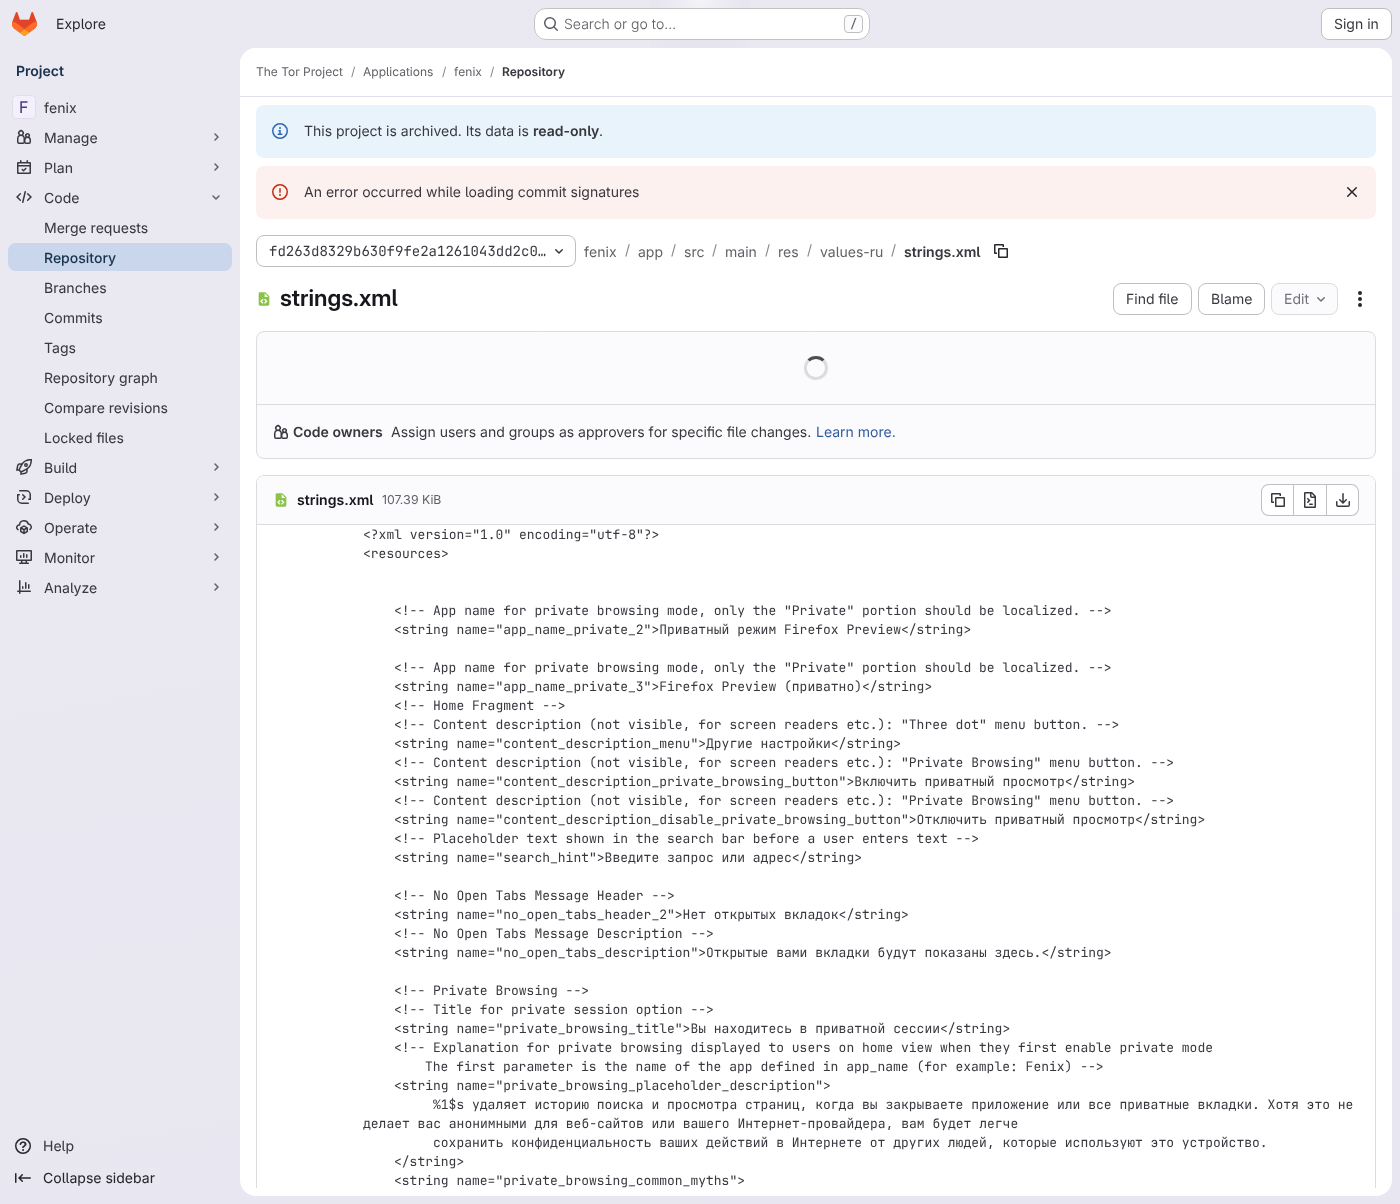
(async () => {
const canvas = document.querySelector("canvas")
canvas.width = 1400
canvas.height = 1204
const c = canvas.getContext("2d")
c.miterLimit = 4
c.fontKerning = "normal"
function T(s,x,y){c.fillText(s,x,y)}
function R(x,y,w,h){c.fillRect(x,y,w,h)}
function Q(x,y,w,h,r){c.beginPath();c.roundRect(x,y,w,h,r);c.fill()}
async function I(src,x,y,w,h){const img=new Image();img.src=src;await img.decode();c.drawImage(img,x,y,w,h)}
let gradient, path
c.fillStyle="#fff"
R(0,0,1400,1204)
gradient = c.createLinearGradient(824,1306,576,-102)
gradient.addColorStop(0,"#e8e6f0")
gradient.addColorStop(.7,"#eae9f2")
c.fillStyle = gradient
R(0,0,1400,1204)
gradient = c.createRadialGradient(700,0,0,700,0,700)
gradient.addColorStop(0,"#e4e2ed")
gradient.addColorStop(.1,"#e4e2ed00")
c.fillStyle = gradient
c.beginPath()
c.rect(650,0,100,48)
c.save()
c.clip()
c.scale(1,1204 / 700)
c.fillRect(0,0,1400,700)
c.restore()
gradient = c.createRadialGradient(700,0,0,700,0,1393)
gradient.addColorStop(0,"#ffffff99")
gradient.addColorStop(.03,"#ffffff00")
c.fillStyle = gradient
R(660,0,80,8)
await I("1.png",12,12,25,24)
c.font="14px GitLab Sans"
c.fillStyle="#28272d"
T("Explore",56,29)
c.fillStyle="#fff"
Q(534,8,336,32,12)
c.beginPath()
c.roundRect(534.5,8.5,335,31,11.5)
c.strokeStyle="#0505063d"
c.stroke()
await I("2.png",544,17,14,14)
c.font="300 14px GitLab Sans"
c.fillStyle="#626168"
T("Search or go to…",564,29)
c.fillStyle="#fbfafd"
c.beginPath()
c.roundRect(844.5,15.5,18,17,3.5)
c.fill()
c.strokeStyle="#bfbfc3"
c.stroke()
c.font="500 12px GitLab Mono"
c.fillStyle="#626168"
T("/",850,28)
c.fillStyle="#fff"
c.beginPath()
c.roundRect(1321.5,8.5,70,31,7.5)
c.fill()
c.stroke()
c.font="14px GitLab Sans"
c.fillStyle="#3a383f"
T("Sign in",1334,29)
c.font="600 14px GitLab Sans"
c.fillStyle="#18334e"
T("Project",16,76)
c.fillStyle="#fff"
Q(12,95,24,24,4)
c.fillStyle="#cbbbf23d"
Q(12,95,24,24,4)
c.beginPath()
c.roundRect(12.5,95.5,23,23,3.5)
c.strokeStyle="#05050614"
c.stroke()
c.font="16px 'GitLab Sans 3'"
c.fillStyle="#493c83"
T("F",19,113)
c.font="14px 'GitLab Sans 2'"
c.fillStyle="#3a383f"
T("fenix",44,113)
await I("3.png",17,129,14,15)
T("Manage",44,143)
path = new Path2D("M215 134l3 3l-3 3")
c.strokeStyle="#626168"
c.lineWidth=1.5
c.lineCap="round"
c.lineJoin="round"
c.stroke(path)
await I("4.png",17,160,14,14)
T("Plan",44,173)
path = new Path2D("M215 164l3 3l-3 3")
c.stroke(path)
await I("5.png",16,191,16,12)
T("Code",44,203)
path = new Path2D("M219 196l-3 3l-3-3")
c.stroke(path)
T("Merge requests",44,233)
c.fillStyle="#c9d6eb"
Q(8,243,224,28,8)
c.font="500 14px GitLab Sans"
c.fillStyle="#18334e"
T("Repository",44,263)
c.font="14px 'GitLab Sans 2'"
c.fillStyle="#3a383f"
T("Branches",44,293)
T("Commits",44,323)
T("Tags",44,353)
T("Repository graph",44,383)
T("Compare revisions",44,413)
T("Locked files",44,443)
await I("6.png",16,459,16,16)
T("Build",44,473)
path = new Path2D("M215 464l3 3l-3 3")
c.stroke(path)
await I("7.png",17,490,14,14)
T("Deploy",44,503)
path = new Path2D("M215 494l3 3l-3 3")
c.stroke(path)
await I("8.png",16,520,16,15)
T("Operate",44,533)
path = new Path2D("M215 524l3 3l-3 3")
c.stroke(path)
await I("9.png",16,550,16,14)
T("Monitor",44,563)
path = new Path2D("M215 554l3 3l-3 3")
c.stroke(path)
await I("10.png",17,580,14,14)
T("Analyze",44,593)
path = new Path2D("M215 584l3 3l-3 3")
c.stroke(path)
await I("11.png",15,1138,16,16)
T("Help",43,1151)
await I("12.png",15,1173,16,10)
c.fillStyle="#28272d"
T("Collapse sidebar",43,1183)
c.fillStyle="#fff"
Q(240,48,1152,1148,16)
c.beginPath()
c.roundRect(240,48,1152,49,[16,16,0,0])
c.fill()
c.fillStyle="#e1dfec"
R(240,96,1152,1)
c.font="12px GitLab Sans"
c.fillStyle="#626168"
T("The Tor Project",256,76)
c.fillStyle="#89888d"
T("/",351,76)
c.fillStyle="#626168"
T("Applications",363,76)
c.fillStyle="#89888d"
T("/",442,76)
c.fillStyle="#626168"
T("fenix",454,76)
c.fillStyle="#89888d"
T("/",490,76)
c.font="600 12px GitLab Sans"
c.fillStyle="#3a383f"
T("Repository",502,76)
c.fillStyle="#e9f3fc"
Q(256,105,1120,53,8)
await I("13.png",272,123,16,16)
c.font="14px GitLab Sans"
c.fillStyle="#3a383f"
T("This project is archived. Its data is",304,136)
c.font="600 14px GitLab Sans"
T("read-only",533,136)
c.font="14px GitLab Sans"
T(".",599,136)
c.fillStyle="#fcf1ef"
Q(256,166,1120,53,8)
await I("14.png",272,184,16,16)
c.fillStyle="#3a383f"
T("An error occurred while loading commit signatures",304,197)
await I("15.png",1347,187,10,10)
c.beginPath()
c.roundRect(256.5,235.5,319,31,7.5)
c.strokeStyle="#bfbfc3"
c.lineWidth=1
c.lineJoin="miter"
c.stroke()
c.font="14px GitLab Mono"
T("fd263d8329b630f9fe2a1261043dd2c0…",269,256)
await I("16.png",555,249,8,5)
c.font="14px GitLab Sans"
c.fillStyle="#626168"
T("fenix",584,257)
c.fillStyle="#89888d"
T("/",625,255)
c.fillStyle="#626168"
T("app",638,257)
c.fillStyle="#89888d"
T("/",671,255)
c.fillStyle="#626168"
T("src",684,257)
c.fillStyle="#89888d"
T("/",712,255)
c.fillStyle="#626168"
T("main",725,257)
c.fillStyle="#89888d"
T("/",765,255)
c.fillStyle="#626168"
T("res",778,257)
c.fillStyle="#89888d"
T("/",807,255)
c.fillStyle="#626168"
T("values-ru",820,257)
c.fillStyle="#89888d"
T("/",891,255)
c.font="600 14px GitLab Sans"
c.fillStyle="#3a383f"
T("strings.xml",904,257)
await I("17.png",994,244,14,14)
await I("18.png",258,292,12,14)
c.font="600 23px 'GitLab Sans 2'"
c.fillStyle="#18171d"
T("strings.xml",280,306)
c.beginPath()
c.roundRect(1113.5,283.5,78,31,7.5)
c.stroke()
c.font="14px GitLab Sans"
c.fillStyle="#3a383f"
T("Find file",1126,304)
c.beginPath()
c.roundRect(1198.5,283.5,66,31,7.5)
c.stroke()
T("Blame",1211,304)
c.fillStyle="#fbfafd"
c.beginPath()
c.roundRect(1271.5,283.5,66,31,7.5)
c.fill()
c.strokeStyle="#dcdcde"
c.stroke()
c.fillStyle="#737278"
T("Edit",1284,304)
await I("19.png",1317,297,8,5)
await I("20.png",1358,291,4,16)
c.fillStyle="#fbfafd"
c.beginPath()
c.roundRect(256.5,331.5,1119,127,7.5)
c.fill()
c.stroke()
path = new Path2D("M808.5 360.5c4-4 11-4 15 0")
c.strokeStyle="#4c4b51"
c.lineWidth=3
c.lineCap="butt"
c.stroke(path)
path = new Path2D("M823.5 360.5c2 2 3 4.5 3 7.5c0 12.5-18.5 14.5-21 2c-.5-3.5 .5-7 3-9.5")
c.strokeStyle="#dcdcde"
c.stroke(path)
c.fillStyle="#dcdcde"
R(257,404,1118,1)
await I("21.png",274,424,14,15)
c.font="600 14px GitLab Sans"
c.fillStyle="#3a383f"
T("Code owners",293,437)
c.font="14px GitLab Sans"
T("Assign users and groups as approvers for specific file changes.",391,437)
c.fillStyle="#2f5ca0"
T("Learn more.",816,437)
c.save()
c.beginPath()
c.rect(240,97,1152,1091)
c.clip()
c.fillStyle="#dcdcde"
path = new Path2D("M264 475c-4 0-8 4-8 8v713h1v-713c0-4 3-7 7-7h1104c4 0 7 3 7 7v713h1v-713c0-4-4-8-8-8z")
c.fill(path)
c.restore()
c.fillStyle="#fbfafd"
c.beginPath()
c.roundRect(257,476,1118,49,[7,7,0,0])
c.fill()
c.fillStyle="#dcdcde"
R(257,524,1118,1)
await I("22.png",275,493,12,14)
c.font="600 14px GitLab Sans"
c.fillStyle="#18171d"
T("strings.xml",297,505)
c.font="12.25px GitLab Sans"
c.fillStyle="#626168"
T("107.39 KiB",382,504)
c.fillStyle="#fff"
c.beginPath()
c.roundRect(1262,485,31,30,[7,0,0,7])
c.fill()
c.fillStyle="#bfbfc3"
path = new Path2D("M1269 484h24v32h-24c-4.5 0-8-3.5-8-8v-16c0-4.5 3.5-8 8-8zm0 1h24v30h-24c-4 0-7-3-7-7v-16c0-4 3-7 7-7z")
c.fill(path,"evenodd")
await I("23.png",1271,493,14,14)
c.fillStyle="#fff"
R(1294,485,32,30)
c.fillStyle="#bfbfc3"
R(1294,484,32,1)
R(1294,515,32,1)
R(1293,484,1,32)
await I("24.png",1304,492,12,16)
c.fillStyle="#fff"
c.beginPath()
c.roundRect(1327,485,31,30,[0,7,7,0])
c.fill()
c.fillStyle="#bfbfc3"
path = new Path2D("M1327 484h24c4.5 0 8 3.5 8 8v16c0 4.5-3.5 8-8 8h-24zm0 1h24c4 0 7 3 7 7v16c0 4-3 7-7 7h-24z")
c.fill(path,"evenodd")
R(1326,484,1,32)
await I("25.png",1336,493,14,14)
c.font="13px GitLab Mono"
c.fillStyle="#3a383f"
T("<?xml version=\"1.0\" encoding=\"utf-8\"?>",363,539)
T("<resources>",363,558)
T("<\!-- App name for private browsing mode, only the \"Private\" portion should be localized. -->",394,615)
T("<string name=\"app_name_private_2\">Приватный режим Firefox Preview<\/string>",394,634)
T("<\!-- App name for private browsing mode, only the \"Private\" portion should be localized. -->",394,672)
T("<string name=\"app_name_private_3\">Firefox Preview (приватно)<\/string>",394,691)
T("<\!-- Home Fragment -->",394,710)
T("<\!-- Content description (not visible, for screen readers etc.): \"Three dot\" menu button. -->",394,729)
T("<string name=\"content_description_menu\">Другие настройки<\/string>",394,748)
T("<\!-- Content description (not visible, for screen readers etc.): \"Private Browsing\" menu button. -->",394,767)
T("<string name=\"content_description_private_browsing_button\">Включить приватный просмотр<\/string>",394,786)
T("<\!-- Content description (not visible, for screen readers etc.): \"Private Browsing\" menu button. -->",394,805)
T("<string name=\"content_description_disable_private_browsing_button\">Отключить приватный просмотр<\/string>",394,824)
T("<\!-- Placeholder text shown in the search bar before a user enters text -->",394,843)
T("<string name=\"search_hint\">Введите запрос или адрес<\/string>",394,862)
T("<\!-- No Open Tabs Message Header -->",394,900)
T("<string name=\"no_open_tabs_header_2\">Нет открытых вкладок<\/string>",394,919)
T("<\!-- No Open Tabs Message Description -->",394,938)
T("<string name=\"no_open_tabs_description\">Открытые вами вкладки будут показаны здесь.<\/string>",394,957)
T("<\!-- Private Browsing -->",394,995)
T("<\!-- Title for private session option -->",394,1014)
T("<string name=\"private_browsing_title\">Вы находитесь в приватной сессии<\/string>",394,1033)
T("<\!-- Explanation for private browsing displayed to users on home view when they first enable private mode",394,1052)
T("The first parameter is the name of the app defined in app_name (for example: Fenix) -->",425,1071)
T("<string name=\"private_browsing_placeholder_description\">",394,1090)
T("%1$s удаляет историю поиска и просмотра страниц, когда вы закрываете приложение или все приватные вкладки. Хотя это не",433,1109)
T("делает вас анонимными для веб-сайтов или вашего Интернет-провайдера, вам будет легче",363,1128)
T("сохранить конфиденциальность ваших действий в Интернете от других людей, которые используют это устройство.",433,1147)
T("<\/string>",394,1166)
T("<string name=\"private_browsing_common_myths\">",394,1185)
})()
